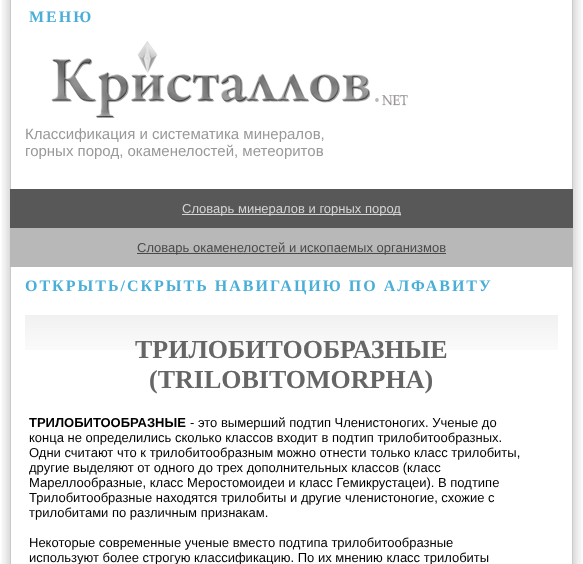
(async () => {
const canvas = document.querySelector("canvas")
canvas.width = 583
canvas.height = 564
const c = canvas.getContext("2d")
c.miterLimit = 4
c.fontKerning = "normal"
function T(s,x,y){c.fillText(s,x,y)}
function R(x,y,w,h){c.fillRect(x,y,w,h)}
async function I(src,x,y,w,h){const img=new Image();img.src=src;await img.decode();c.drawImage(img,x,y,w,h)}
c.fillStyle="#fff"
R(0,0,583,564)
await I("1.png",1,0,10,564)
await I("2.png",572,0,10,564)
c.letterSpacing="2px"
c.font="bold 16px Liberation Serif"
c.fillStyle="#49aed8"
T("МЕНЮ",29,22)
await I("3.png",51,41,357,77)
c.letterSpacing="0px"
c.font="15px Liberation Sans"
c.fillStyle="#999"
T("Классификация и систематика минералов,",25,139)
T("горных пород, окаменелостей, метеоритов",25,156)
c.fillStyle="#585858"
R(10,189,563,39)
c.fillStyle="#d5d5d5"
R(182,214,219,1)
c.font="13px Liberation Sans"
T("Словарь минералов и горных пород",182,213)
c.fillStyle="#b8b8b8"
R(10,228,563,39)
c.fillStyle="#494949"
R(137,253,309,1)
T("Словарь окаменелостей и ископаемых организмов",137,252)
c.letterSpacing="2px"
c.font="bold 16px Liberation Serif"
c.fillStyle="#49aed8"
T("ОТКРЫТЬ/СКРЫТЬ НАВИГАЦИЮ ПО АЛФАВИТУ",25,291)
await I("4.png",25,315,533,35)
c.letterSpacing="0px"
c.font="bold 26px Liberation Serif"
c.fillStyle="#666"
T("ТРИЛОБИТООБРАЗНЫЕ",135,358)
T("(TRILOBITOMORPHA)",149,388)
c.font="bold 13px Liberation Sans"
c.fillStyle="#000"
T("ТРИЛОБИТООБРАЗНЫЕ",29,427)
c.font="13px Liberation Sans"
T("- это вымерший подтип Членистоногих. Ученые до",190,427)
T("конца не определились сколько классов входит в подтип трилобитообразных.",29,442)
T("Одни считают что к трилобитообразным можно отнести только класс трилобиты,",29,457)
T("другие выделяют от одного до трех дополнительных классов (класс",29,472)
T("Мареллообразные, класс Меростомоидеи и класс Гемикрустацеи). В подтипе",29,487)
T("Трилобитообразные находятся трилобиты и другие членистоногие, схожие с",29,502)
T("трилобитами по различным признакам.",29,517)
T("Некоторые современные ученые вместо подтипа трилобитообразные",29,547)
T("используют более строгую классификацию. По их мнению класс трилобиты",29,562)
})()
